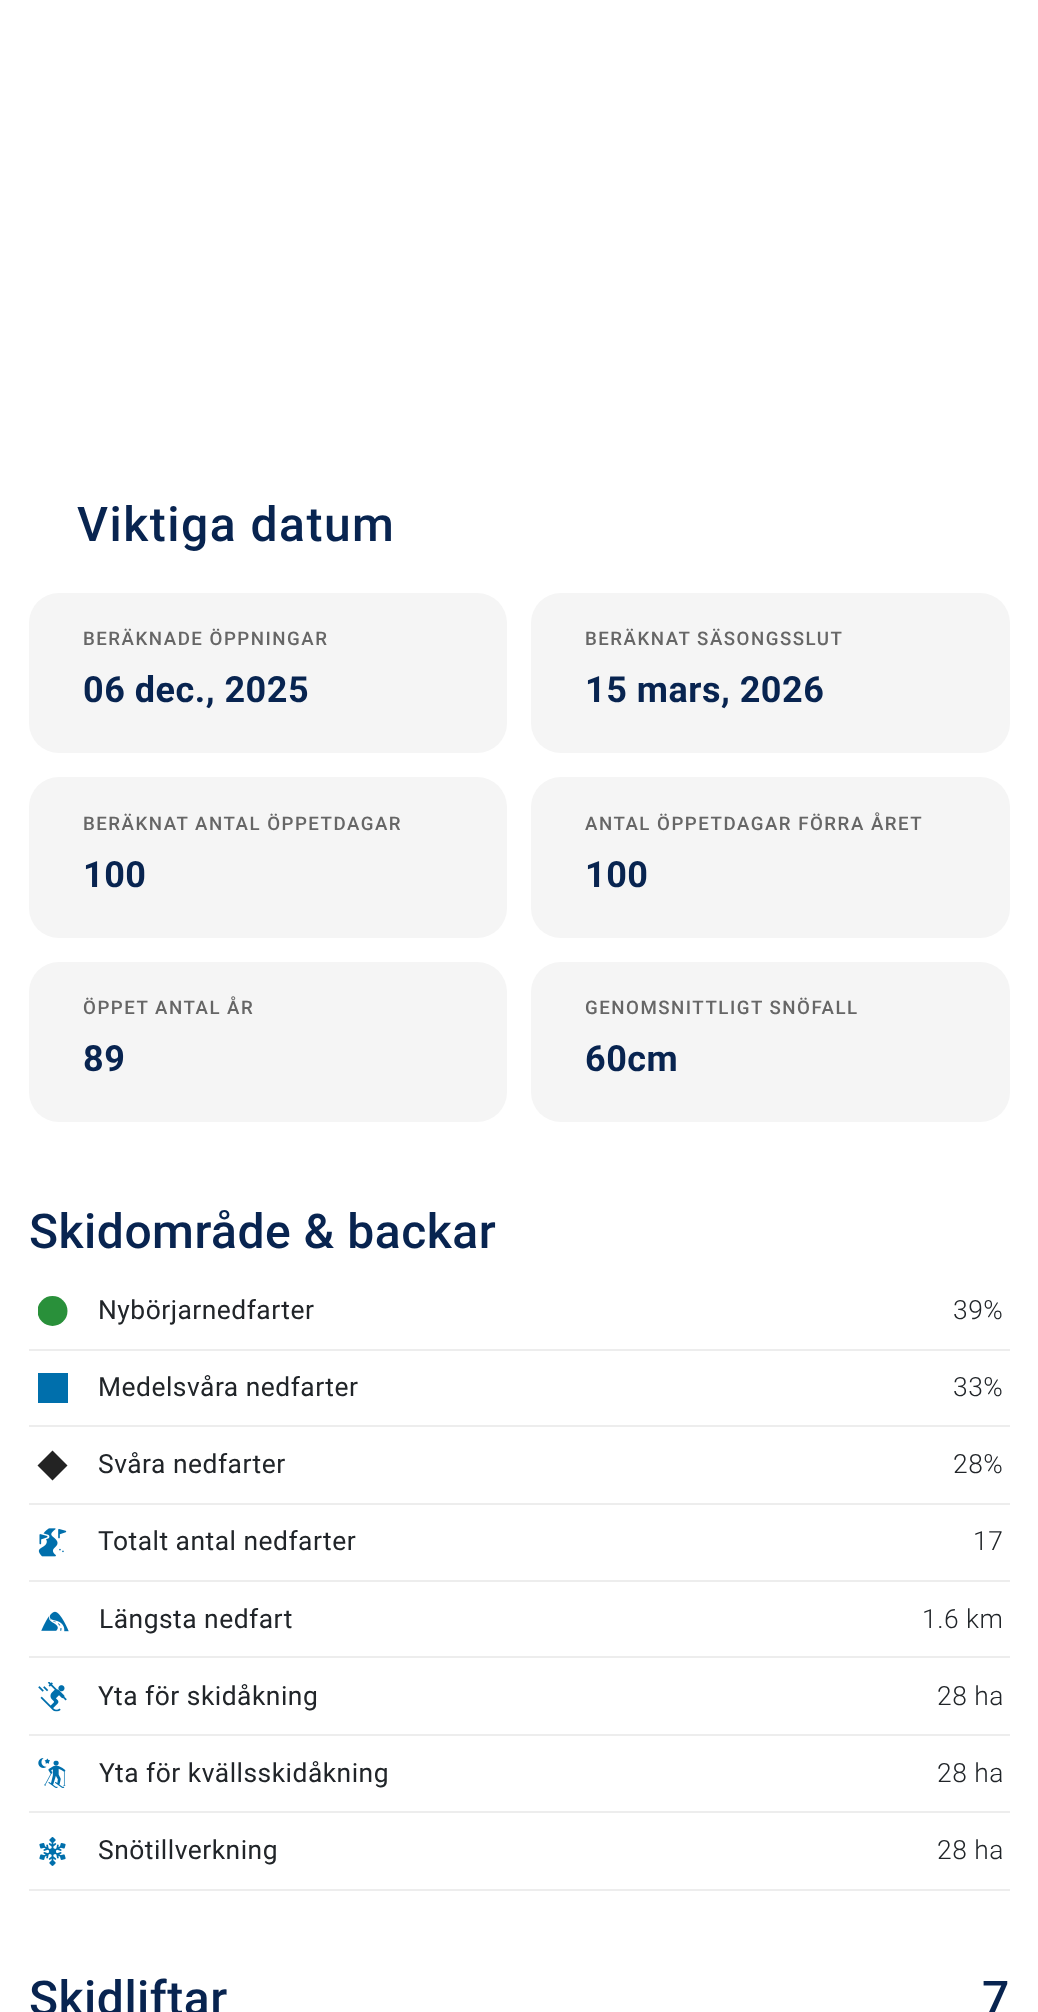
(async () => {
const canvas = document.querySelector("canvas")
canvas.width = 1038
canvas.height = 2012
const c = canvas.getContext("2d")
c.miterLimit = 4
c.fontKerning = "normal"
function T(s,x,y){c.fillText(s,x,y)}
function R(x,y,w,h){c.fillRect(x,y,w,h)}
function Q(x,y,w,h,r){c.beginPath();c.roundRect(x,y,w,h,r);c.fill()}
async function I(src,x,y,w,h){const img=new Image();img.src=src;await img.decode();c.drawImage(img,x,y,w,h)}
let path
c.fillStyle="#fff"
R(0,0,1038,2012)
c.letterSpacing="1.5px"
c.font="500 48px Roboto"
c.fillStyle="#082450"
T("Viktiga datum",77,541)
c.fillStyle="#f5f5f5"
Q(29,593,478,160,30)
c.font="500 18.7px Roboto"
c.fillStyle="#666"
T("BERÄKNADE ÖPPNINGAR",83,645)
c.letterSpacing="0.5px"
c.font="bold 36px Roboto"
c.fillStyle="#082450"
T("06 dec., 2025",83,702)
c.fillStyle="#f5f5f5"
Q(531,593,479,160,30)
c.letterSpacing="1.5px"
c.font="500 18.7px Roboto"
c.fillStyle="#666"
T("BERÄKNAT SÄSONGSSLUT",585,645)
c.letterSpacing="0.5px"
c.font="bold 36px Roboto"
c.fillStyle="#082450"
T("15 mars, 2026",585,702)
c.fillStyle="#f5f5f5"
Q(29,777,478,161,30)
c.letterSpacing="1.5px"
c.font="500 18.7px Roboto"
c.fillStyle="#666"
T("BERÄKNAT ANTAL ÖPPETDAGAR",83,830)
c.letterSpacing="0.5px"
c.font="bold 36px Roboto"
c.fillStyle="#082450"
T("100",83,887)
c.fillStyle="#f5f5f5"
Q(531,777,479,161,30)
c.letterSpacing="1.5px"
c.font="500 18.7px Roboto"
c.fillStyle="#666"
T("ANTAL ÖPPETDAGAR FÖRRA ÅRET",585,830)
c.letterSpacing="0.5px"
c.font="bold 36px Roboto"
c.fillStyle="#082450"
T("100",585,887)
c.fillStyle="#f5f5f5"
Q(29,962,478,160,30)
c.letterSpacing="1.5px"
c.font="500 18.7px Roboto"
c.fillStyle="#666"
T("ÖPPET ANTAL ÅR",83,1014)
c.letterSpacing="0.5px"
c.font="bold 36px Roboto"
c.fillStyle="#082450"
T("89",83,1071)
c.fillStyle="#f5f5f5"
Q(531,962,479,160,30)
c.letterSpacing="1.5px"
c.font="500 18.7px Roboto"
c.fillStyle="#666"
T("GENOMSNITTLIGT SNÖFALL",585,1014)
c.letterSpacing="0.5px"
c.font="bold 36px Roboto"
c.fillStyle="#082450"
T("60cm",585,1071)
c.font="500 48px Roboto"
T("Skidområde & backar",29,1248)
c.fillStyle="#ededed"
R(29,1349,981,2)
c.save()
c.beginPath()
c.rect(38,1296,30,30)
c.clip()
c.fillStyle="#29903a"
c.beginPath()
c.arc(52.5,1311,15,0,7)
c.fill()
c.restore()
c.font="26.4px Roboto"
c.fillStyle="#212529"
T("Nybörjarnedfarter",98,1319)
c.font="300 26.4px Roboto"
T("39%",953,1319)
c.fillStyle="#ededed"
R(29,1425,981,2)
c.fillStyle="#006fac"
R(38,1373,30,30)
c.font="26.4px Roboto"
c.fillStyle="#212529"
T("Medelsvåra nedfarter",98,1396)
c.font="300 26.4px Roboto"
T("33%",953,1396)
c.fillStyle="#ededed"
R(29,1503,981,2)
c.fillStyle="#232323"
path = new Path2D("M52.5 1450.5l15 15l-15 15l-15-15z")
c.fill(path)
c.font="26.4px Roboto"
c.fillStyle="#212529"
T("Svåra nedfarter",98,1473)
c.font="300 26.4px Roboto"
T("28%",953,1473)
c.fillStyle="#ededed"
R(29,1580,981,2)
await I("1.png",38,1528,29,29)
c.font="26.4px Roboto"
c.fillStyle="#212529"
T("Totalt antal nedfarter",98,1550)
c.font="300 26.4px Roboto"
T("17",973,1550)
c.fillStyle="#ededed"
R(29,1656,981,2)
await I("2.png",41,1611,28,21)
c.font="26.4px Roboto"
c.fillStyle="#212529"
T("Längsta nedfart",99,1628)
c.font="300 26.4px Roboto"
T("1.6 km",922,1628)
c.fillStyle="#ededed"
R(29,1734,981,2)
await I("3.png",38,1682,29,30)
c.font="26.4px Roboto"
c.fillStyle="#212529"
T("Yta för skidåkning",98,1705)
c.font="300 26.4px Roboto"
T("28 ha",937,1705)
c.fillStyle="#ededed"
R(29,1811,981,2)
await I("4.png",38,1758,28,30)
c.font="26.4px Roboto"
c.fillStyle="#212529"
T("Yta för kvällsskidåkning",99,1782)
c.font="300 26.4px Roboto"
T("28 ha",937,1782)
c.fillStyle="#ededed"
R(29,1889,981,2)
await I("5.png",39,1837,27,29)
c.font="26.4px Roboto"
c.fillStyle="#212529"
T("Snötillverkning",98,1859)
c.font="300 26.4px Roboto"
T("28 ha",937,1859)
c.font="500 48px Roboto"
c.fillStyle="#082450"
T("Skidliftar",29,2015)
T("7",982,2015)
})()
